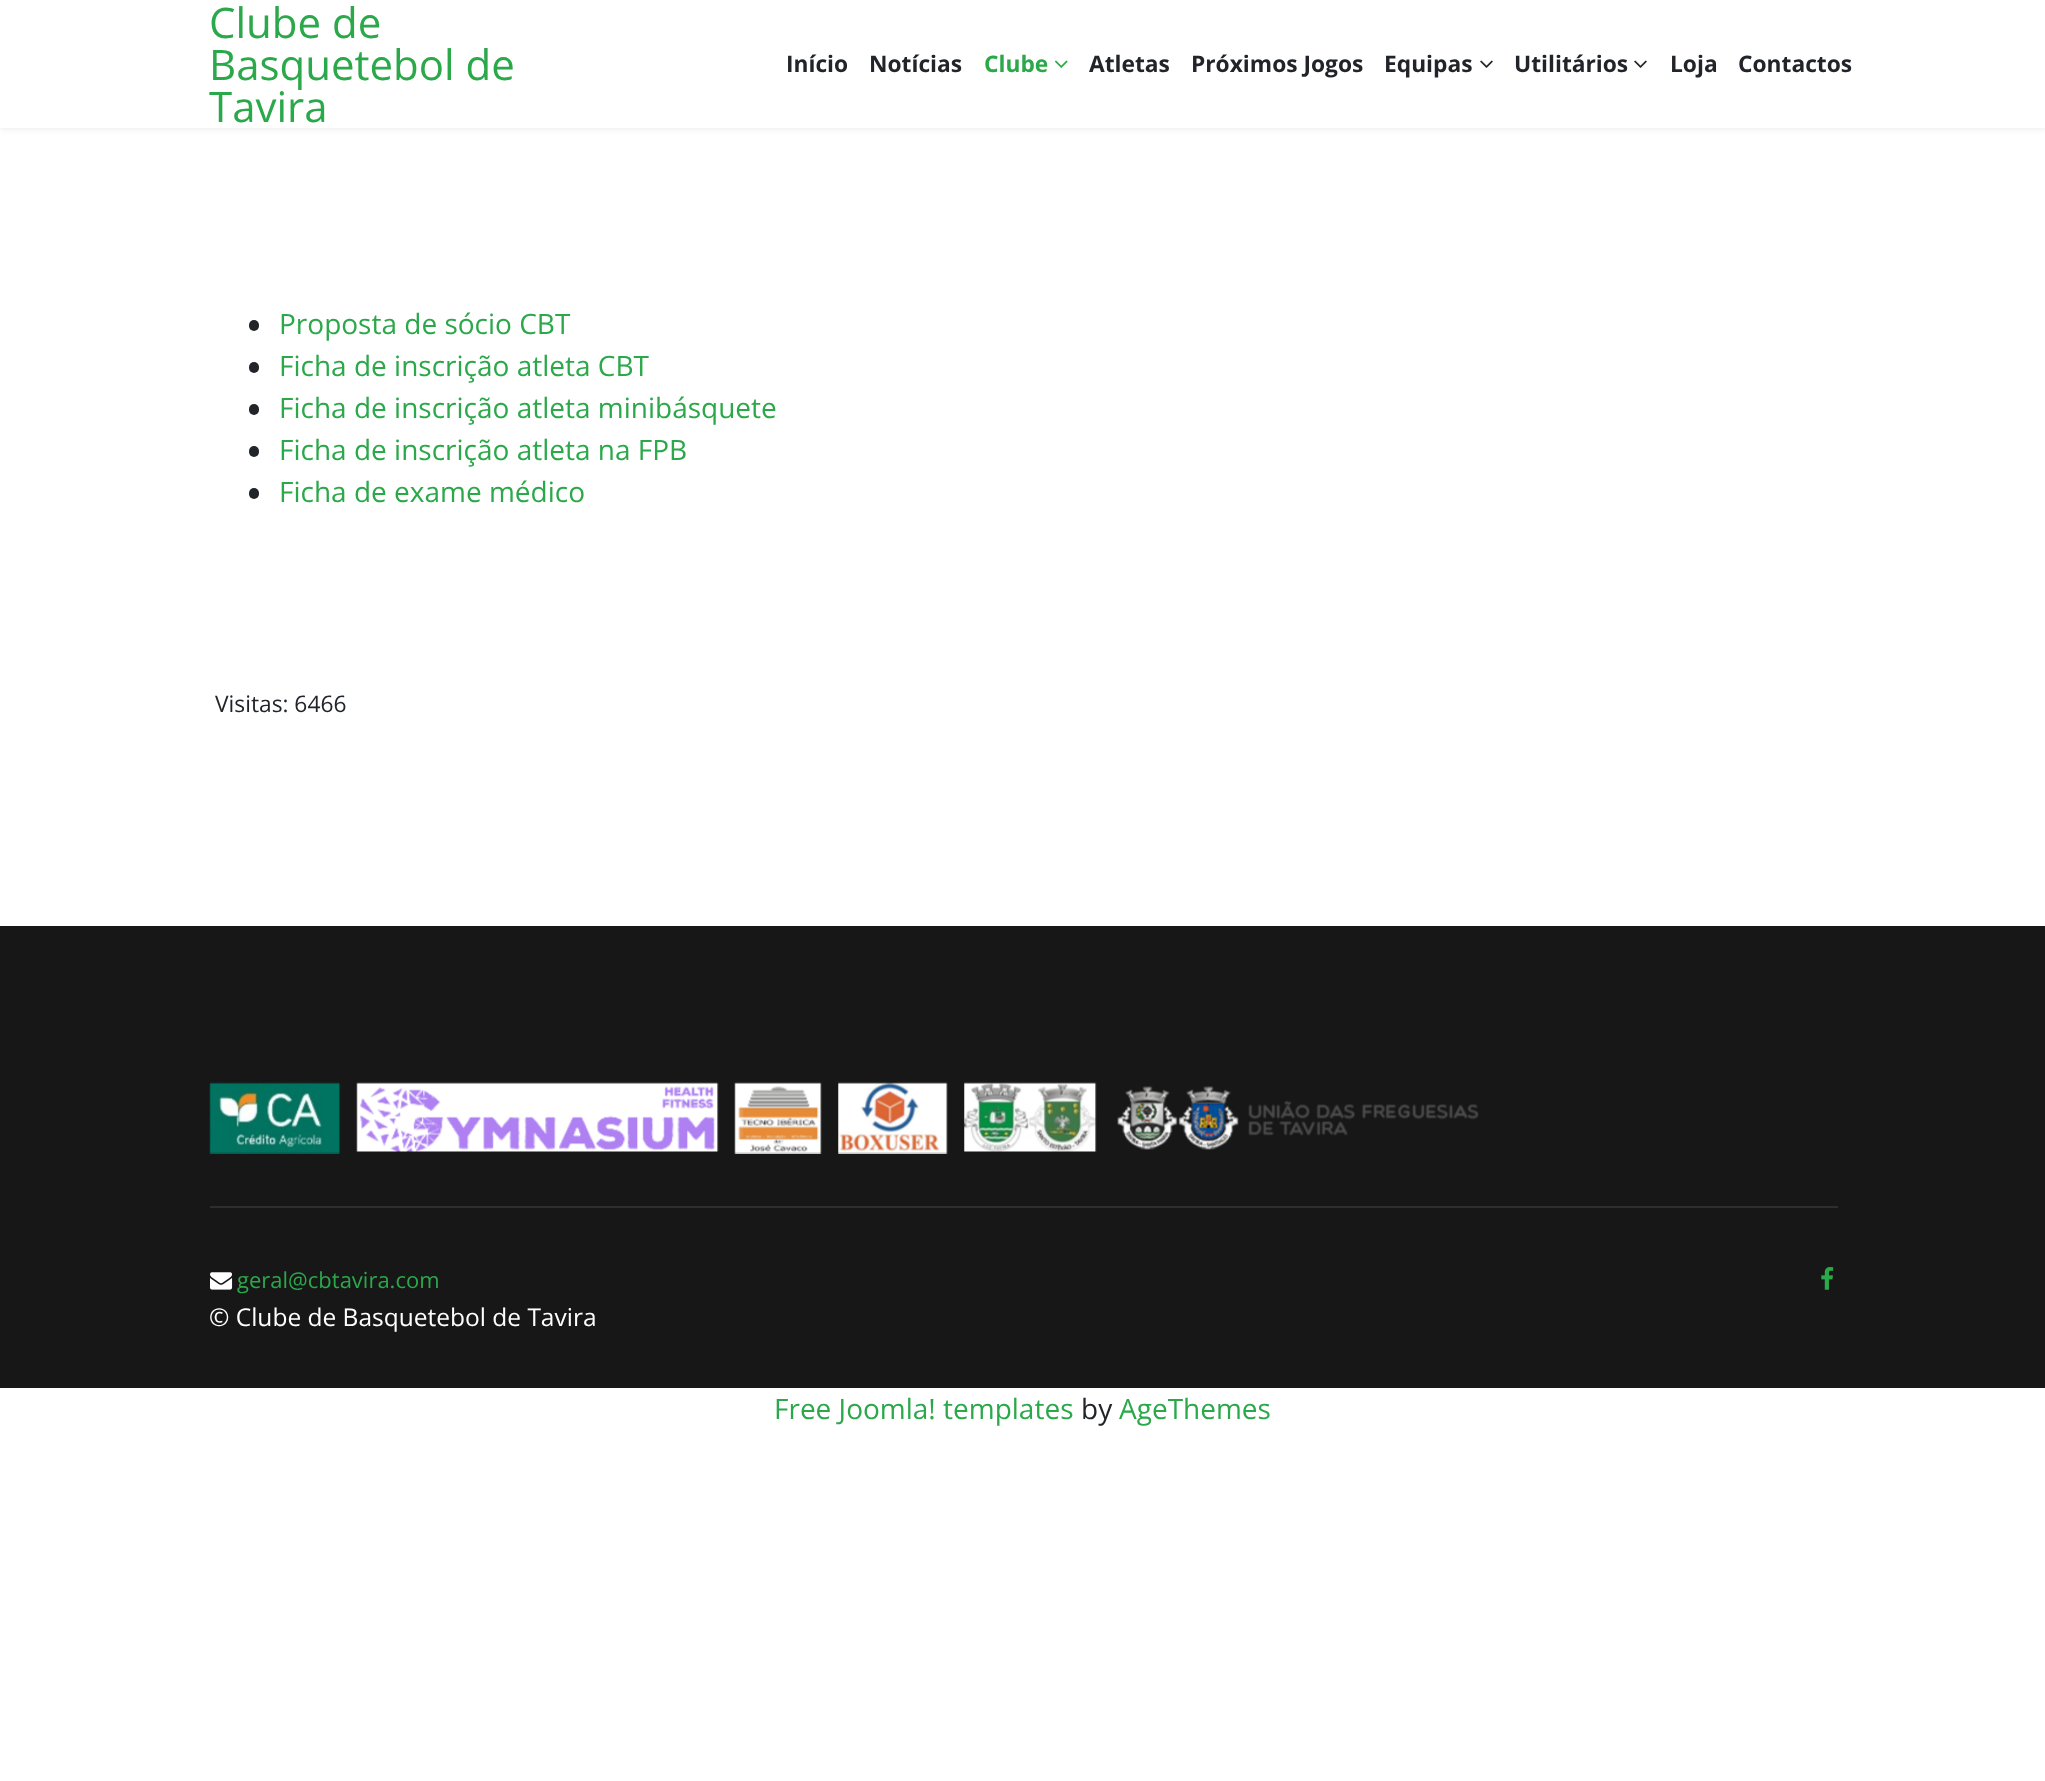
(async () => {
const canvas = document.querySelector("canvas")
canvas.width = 2045
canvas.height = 1781
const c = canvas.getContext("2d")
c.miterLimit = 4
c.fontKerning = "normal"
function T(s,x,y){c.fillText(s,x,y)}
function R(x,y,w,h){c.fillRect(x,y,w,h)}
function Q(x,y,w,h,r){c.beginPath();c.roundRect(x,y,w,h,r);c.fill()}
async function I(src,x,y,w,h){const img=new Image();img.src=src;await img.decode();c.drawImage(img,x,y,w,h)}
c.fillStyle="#fff"
R(0,0,2045,1781)
c.fillStyle="#0000001a"
c.filter="blur(3.5px)"
c.beginPath()
c.rect(0,0,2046,128)
c.fill()
c.filter="none"
c.fillStyle="#fff"
R(0,0,2045,128)
c.font="42px Open Sans"
c.fillStyle="#2ba84a"
T("Clube de",209,38)
T("Basquetebol de",209,80)
T("Tavira",209,122)
c.font="bold 22.75px Open Sans"
c.fillStyle="#212529"
T("Início",786,72)
T("Notícias",869,72)
c.fillStyle="#2ba84a"
T("Clube",984,72)
await I("1.png",1055,60,13,8)
c.fillStyle="#212529"
T("Atletas",1089,72)
T("Próximos Jogos",1191,72)
T("Equipas",1384,72)
await I("2.png",1480,60,13,8)
T("Utilitários",1514,72)
await I("2.png",1634,60,13,8)
T("Loja",1670,72)
T("Contactos",1738,72)
Q(249,320,10,11,5)
c.font="28px Open Sans"
c.fillStyle="#2ba84a"
T("Proposta de sócio CBT",279,334)
c.fillStyle="#212529"
Q(249,362,10,11,5)
c.fillStyle="#2ba84a"
T("Ficha de inscrição atleta CBT",279,376)
c.fillStyle="#212529"
Q(249,404,10,11,5)
c.fillStyle="#2ba84a"
T("Ficha de inscrição atleta minibásquete",279,418)
c.fillStyle="#212529"
Q(249,446,10,11,5)
c.fillStyle="#2ba84a"
T("Ficha de inscrição atleta na FPB",279,460)
c.fillStyle="#212529"
Q(249,488,10,11,5)
c.fillStyle="#2ba84a"
T("Ficha de exame médico",279,502)
c.font="22.75px Open Sans"
c.fillStyle="#212529"
T("Visitas: 6466",215,712)
c.fillStyle="#171717"
R(0,926,2045,462)
await I("3.png",209,1082,132,72)
await I("4.png",356,1082,363,70)
await I("5.png",734,1082,88,72)
await I("6.png",838,1082,110,72)
await I("7.png",964,1082,133,70)
await I("8.png",1117,1086,362,64)
c.fillStyle="#2e2e2e"
R(210,1206,1628,2)
await I("9.png",210,1272,23,18)
c.font="22px Open Sans"
c.fillStyle="#2ba84a"
T("geral@cbtavira.com",237,1288)
c.font="24.5px Open Sans"
c.fillStyle="#fff"
T("© Clube de Basquetebol de Tavira",209,1326)
await I("10.png",1821,1267,13,23)
c.font="28px Open Sans"
c.fillStyle="#2ba84a"
T("Free Joomla! templates",774,1419)
c.fillStyle="#212529"
T("by",1081,1419)
c.fillStyle="#2ba84a"
T("AgeThemes",1119,1419)
})()
